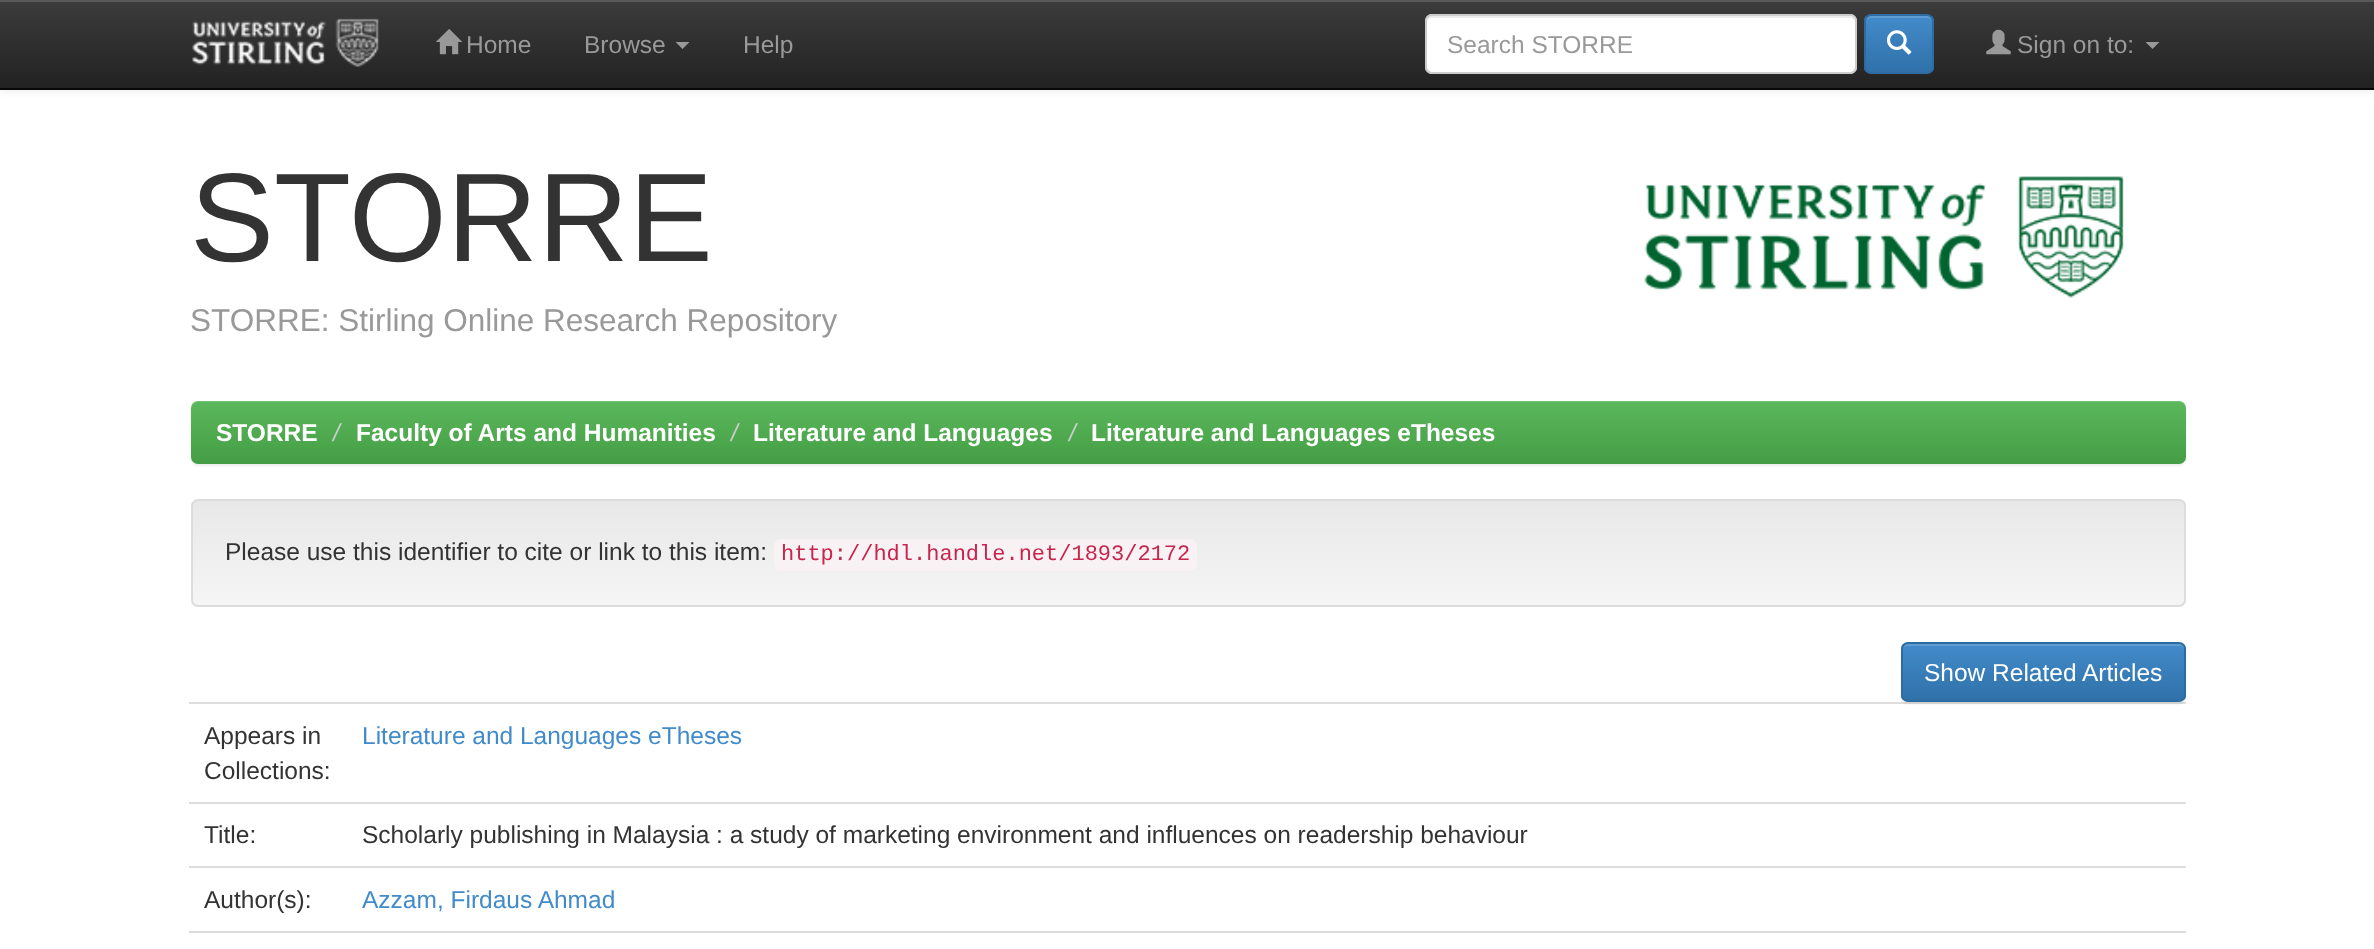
(async () => {
const canvas = document.querySelector("canvas")
canvas.width = 2374
canvas.height = 949
const c = canvas.getContext("2d")
c.miterLimit = 4
c.fontKerning = "normal"
function T(s,x,y){c.fillText(s,x,y)}
function R(x,y,w,h){c.fillRect(x,y,w,h)}
function Q(x,y,w,h,r){c.beginPath();c.roundRect(x,y,w,h,r);c.fill()}
async function I(src,x,y,w,h){const img=new Image();img.src=src;await img.decode();c.drawImage(img,x,y,w,h)}
let gradient, path
c.fillStyle="#fff"
R(0,0,2374,949)
c.fillStyle="#00000012"
c.filter="blur(4.5px)"
c.beginPath()
c.rect(0,2,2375,89)
c.fill()
c.filter="none"
gradient = c.createLinearGradient(1187,0,1187,88)
gradient.addColorStop(0,"#3c3c3c")
gradient.addColorStop(1,"#222")
c.fillStyle = gradient
R(0,2,2374,86)
c.fillStyle="#595959"
R(0,0,2374,2)
c.fillStyle="#080808"
R(0,88,2374,2)
await I("1.png",192,18,187,49)
await I("2.png",436,29,27,26)
c.font="24.5px Liberation Sans"
c.fillStyle="#999"
T("Home",466,53)
T("Browse",584,53)
path = new Path2D("M675.5 42h14l-7 7z")
c.fill(path)
T("Help",743,53)
c.fillStyle="#fff"
Q(1425,14,432,60,7)
c.fillStyle="#ececec"
path = new Path2D("M1432 18h418c3 0 5 2 5 5c0-3-1-7-5-7h-419c-4 0-5 4-5 7c0-3 3-5 6-5z")
c.fill(path)
c.beginPath()
c.roundRect(1426,15,430,58,6)
c.strokeStyle="#ccc"
c.lineWidth=2
c.stroke()
c.fillStyle="#999"
T("Search STORRE",1447,53)
c.save()
c.beginPath()
c.roundRect(1864,14,70,60,7)
c.clip()
gradient = c.createLinearGradient(1899,16,1899,72)
gradient.addColorStop(0,"#428bca")
gradient.addColorStop(1,"#3071a9")
c.fillStyle = gradient
R(1864,16,70,56)
c.restore()
c.fillStyle="#5e9cd2"
path = new Path2D("M1871 18h56c3 0 5 2 5 5c0-9-7-7-14-7h-38c-7 0-14-2-14 7c0-3 2-5 5-5z")
c.fill(path)
c.beginPath()
c.roundRect(1865,15,68,58,6)
c.strokeStyle="#2d6ca2"
c.stroke()
await I("3.png",1887,30,25,25)
await I("4.png",1986,29,25,26)
c.fillStyle="#999"
T("Sign on to:",2017,53)
path = new Path2D("M2145.5 42h14l-7 7z")
c.fill(path)
c.font="126px Liberation Sans"
c.fillStyle="#333"
T("STORRE",190,261)
c.font="31.5px Liberation Sans"
c.fillStyle="#999"
T("STORRE: Stirling Online Research Repository",190,331)
await I("5.png",1644,176,480,122)
c.fillStyle="#00000012"
c.filter="blur(1px)"
c.beginPath()
c.roundRect(191,403,1995,63,7)
c.fill()
c.filter="none"
gradient = c.createLinearGradient(1188,401,1188,464)
gradient.addColorStop(0,"#5cb85c")
gradient.addColorStop(1,"#449d44")
c.fillStyle = gradient
Q(191,401,1995,63,7)
c.fillStyle="#ffffff26"
path = new Path2D("M198 402h1981c4 0 7 4 7 8c0-4-2-9-7-9h-1981c-5 0-7 5-7 9c0-4 3-8 7-8z")
c.fill(path)
c.font="bold 24.5px Liberation Sans"
c.fillStyle="#fff"
T("STORRE",216,441)
c.font="italic 24.5px Liberation Sans"
c.fillStyle="#ccc"
T("/",333,441)
c.font="bold 24.5px Liberation Sans"
c.fillStyle="#fff"
T("Faculty of Arts and Humanities",356,441)
c.font="italic 24.5px Liberation Sans"
c.fillStyle="#ccc"
T("/",731,441)
c.font="bold 24.5px Liberation Sans"
c.fillStyle="#fff"
T("Literature and Languages",753,441)
c.font="italic 24.5px Liberation Sans"
c.fillStyle="#ccc"
T("/",1069,441)
c.font="bold 24.5px Liberation Sans"
c.fillStyle="#fff"
T("Literature and Languages eTheses",1091,441)
c.save()
c.beginPath()
c.roundRect(191,499,1995,108,7)
c.clip()
gradient = c.createLinearGradient(1188,500,1188,606)
gradient.addColorStop(0,"#e8e8e8")
gradient.addColorStop(1,"#f5f5f5")
c.fillStyle = gradient
R(191,501,1995,105)
c.restore()
c.beginPath()
c.roundRect(192,500,1993,106,6)
c.strokeStyle="#dcdcdc"
c.stroke()
c.font="24.5px Liberation Sans"
c.fillStyle="#333"
T("Please use this identifier to cite or link to this item:",225,560)
c.fillStyle="#f9f2f4"
Q(774,539,423,32,7)
c.font="22px Liberation Mono"
c.fillStyle="#c7254e"
T("http://hdl.handle.net/1893/2172",781,560)
c.fillStyle="#ddd"
R(189,702,1997,2)
c.fillStyle="#00000012"
c.filter="blur(1px)"
c.beginPath()
c.roundRect(1901,644,285,60,7)
c.fill()
c.filter="none"
c.save()
c.beginPath()
c.roundRect(1901,642,285,60,7)
c.clip()
gradient = c.createLinearGradient(2043,644,2043,700)
gradient.addColorStop(0,"#428bca")
gradient.addColorStop(1,"#3071a9")
c.fillStyle = gradient
R(1901,644,285,56)
c.restore()
c.fillStyle="#ffffff26"
path = new Path2D("M1908 646h271c3 0 5 2 5 5v-2c0-3-2-5-5-5h-272c-3 0-5 2-5 5v2c0-3 3-5 6-5z")
c.fill(path)
c.beginPath()
c.roundRect(1902,643,283,58,6)
c.strokeStyle="#2d6ca2"
c.stroke()
c.font="24.5px Liberation Sans"
c.fillStyle="#fff"
T("Show Related Articles",1924,681)
c.fillStyle="#333"
T("Appears in",204,744)
T("Collections:",204,779)
c.fillStyle="#428bca"
T("Literature and Languages eTheses",362,744)
c.fillStyle="#333"
T("Title:",204,843)
c.fillStyle="#ddd"
R(189,802,1997,2)
c.fillStyle="#333"
T("Scholarly publishing in Malaysia : a study of marketing environment and influences on readership behaviour",362,843)
T("Author(s):",204,908)
c.fillStyle="#ddd"
R(189,866,1997,2)
c.fillStyle="#428bca"
T("Azzam, Firdaus Ahmad",362,908)
c.fillStyle="#ddd"
R(189,931,1997,2)
})()
